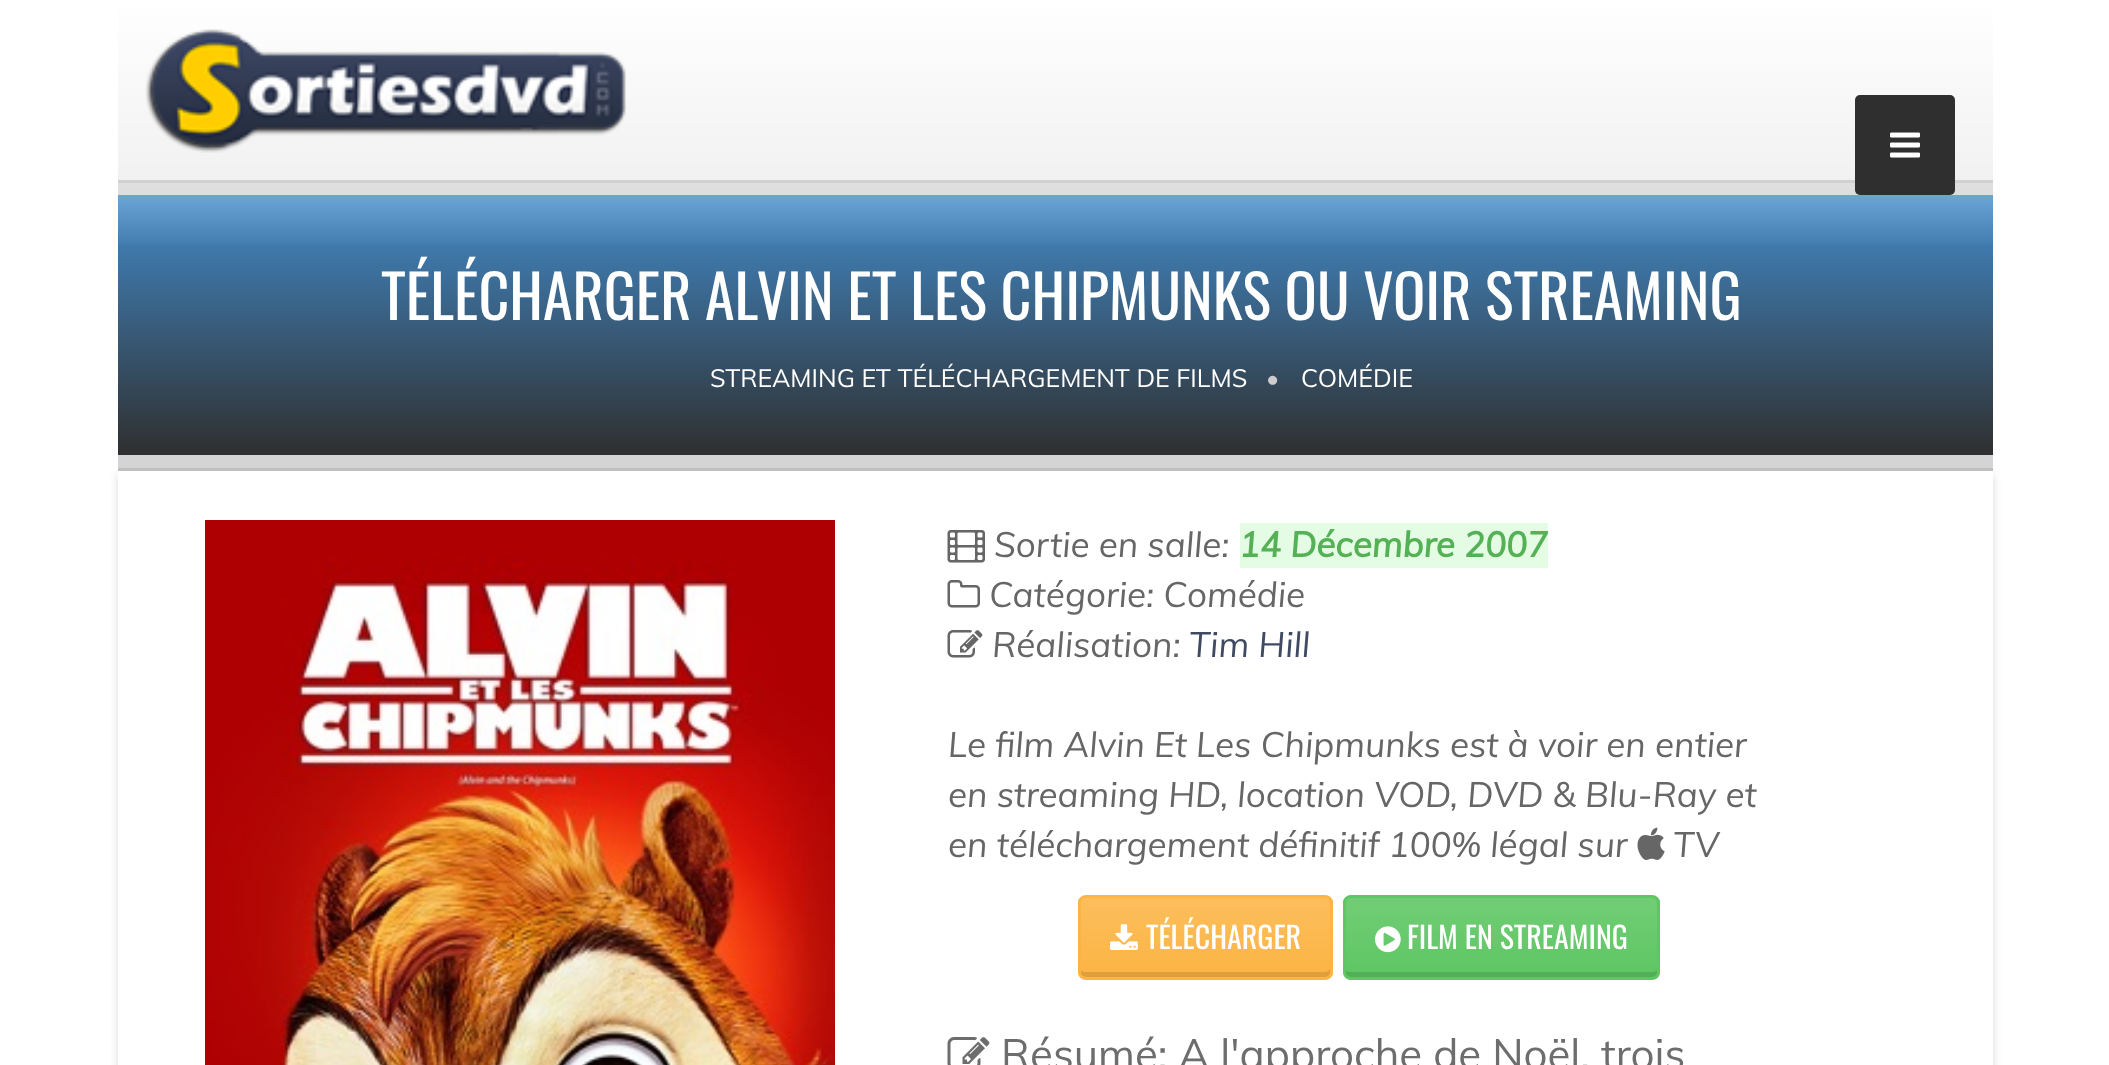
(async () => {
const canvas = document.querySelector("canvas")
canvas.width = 2109
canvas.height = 1065
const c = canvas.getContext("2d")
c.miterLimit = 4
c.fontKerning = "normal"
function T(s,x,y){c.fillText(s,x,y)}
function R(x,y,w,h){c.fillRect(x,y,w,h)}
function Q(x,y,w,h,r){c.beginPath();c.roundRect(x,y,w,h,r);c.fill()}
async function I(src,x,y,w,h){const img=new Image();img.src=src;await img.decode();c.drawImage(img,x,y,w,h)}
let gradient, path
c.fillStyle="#fff"
R(0,0,2109,1065)
c.fillStyle="#ececec"
R(118,1,1875,179)
gradient = c.createLinearGradient(1055,195,1055,455)
gradient.addColorStop(0,"#428bca")
gradient.addColorStop(1,"#2f2f2f")
c.fillStyle = gradient
R(118,195,1875,260)
c.fillStyle="#d4d4d4"
R(118,183,1875,12)
c.fillStyle="#bfbfbf"
R(118,180,1875,3)
gradient = c.createLinearGradient(1055,0,1055,250)
gradient.addColorStop(0,"#fff")
gradient.addColorStop(1,"#ffffff00")
c.fillStyle = gradient
R(118,1,1875,244)
await I("1.png",145,29,481,124)
c.fillStyle="#2f2f2f"
Q(1855,95,100,100,5)
await I("2.png",1890,132,30,26)
c.fillStyle="#00000026"
c.filter="blur(4px)"
c.beginPath()
c.rect(118,475,1875,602)
c.fill()
c.filter="none"
c.fillStyle="#d4d4d4"
R(118,455,1875,13)
c.font="60px Oswald"
c.fillStyle="#fff"
T("TÉLÉCHARGER ALVIN ET LES CHIPMUNKS OU VOIR STREAMING",381,320)
c.font="25px Muli"
T("STREAMING ET TÉLÉCHARGEMENT DE FILMS",710,387)
c.fillStyle="#ccc"
T("•",1266,387)
c.fillStyle="#fff"
T("COMÉDIE",1301,387)
c.fillStyle="#bfbfbf"
R(118,468,1875,3)
c.fillStyle="#fff"
R(118,471,1875,594)
await I("3.png",205,520,630,545)
await I("4.png",947,530,38,33)
c.font="italic 35px Muli"
c.fillStyle="#666"
T("Sortie en salle:",994,557)
c.fillStyle="#e4fbe4"
R(1240,523,308,45)
c.font="italic bold 35px Muli"
c.fillStyle="#55b155"
T("14 Décembre 2007",1239,557)
await I("5.png",947,580,33,28)
c.font="italic 35px Muli"
c.fillStyle="#666"
T("Catégorie: Comédie",989,607)
await I("6.png",947,630,36,28)
T("Réalisation:",992,657)
c.fillStyle="#404b63"
T("Tim Hill",1189,657)
c.fillStyle="#666"
T("Le film Alvin Et Les Chipmunks est à voir en entier",948,757)
T("en streaming HD, location VOD, DVD & Blu-Ray et",948,807)
T("en téléchargement définitif 100% légal sur",948,857)
await I("7.png",1637,827,28,33)
T("TV",1673,857)
c.save()
c.beginPath()
c.roundRect(1078,895,255,85,8)
c.clip()
gradient = c.createLinearGradient(1205,898,1205,978)
gradient.addColorStop(0,"#fcbe5c")
gradient.addColorStop(1,"#fcb443")
c.fillStyle = gradient
R(1078,898,255,80)
c.restore()
c.fillStyle="#de9f3c"
path = new Path2D("M1080 968v5c0 3 2 5 5 5h240c3 0 5-2 5-5v-5c0 2-2 4-5 4h-240c-3 0-5-2-5-4z")
c.fill(path)
c.beginPath()
c.roundRect(1079.5,896.5,252,82,6.5)
c.strokeStyle="#fcb443"
c.lineWidth=3
c.stroke()
await I("8.png",1110,924,28,26)
c.font="30px Oswald"
c.fillStyle="#fff"
T("TÉLÉCHARGER",1146,949)
c.save()
c.beginPath()
c.roundRect(1343,895,317,85,8)
c.clip()
gradient = c.createLinearGradient(1501,898,1501,978)
gradient.addColorStop(0,"#71cd75")
gradient.addColorStop(1,"#5ec663")
c.fillStyle = gradient
R(1343,898,317,80)
c.restore()
c.fillStyle="#53ae58"
path = new Path2D("M1345 968v5c0 3 2 5 5 5h303c3 0 5-2 5-5v-5c0 2-3 4-6 4h-302c-3 0-5-2-5-4z")
c.fill(path)
c.beginPath()
c.roundRect(1344.5,896.5,314,82,6.5)
c.strokeStyle="#5ec663"
c.stroke()
await I("9.png",1375,926,26,27)
c.fillStyle="#fff"
T("FILM EN STREAMING",1407,949)
await I("10.png",947,1037,43,28)
c.font="42px Muli"
c.fillStyle="#6d6d6d"
T("Résumé: A l'approche de Noël, trois",1001,1069)
})()
